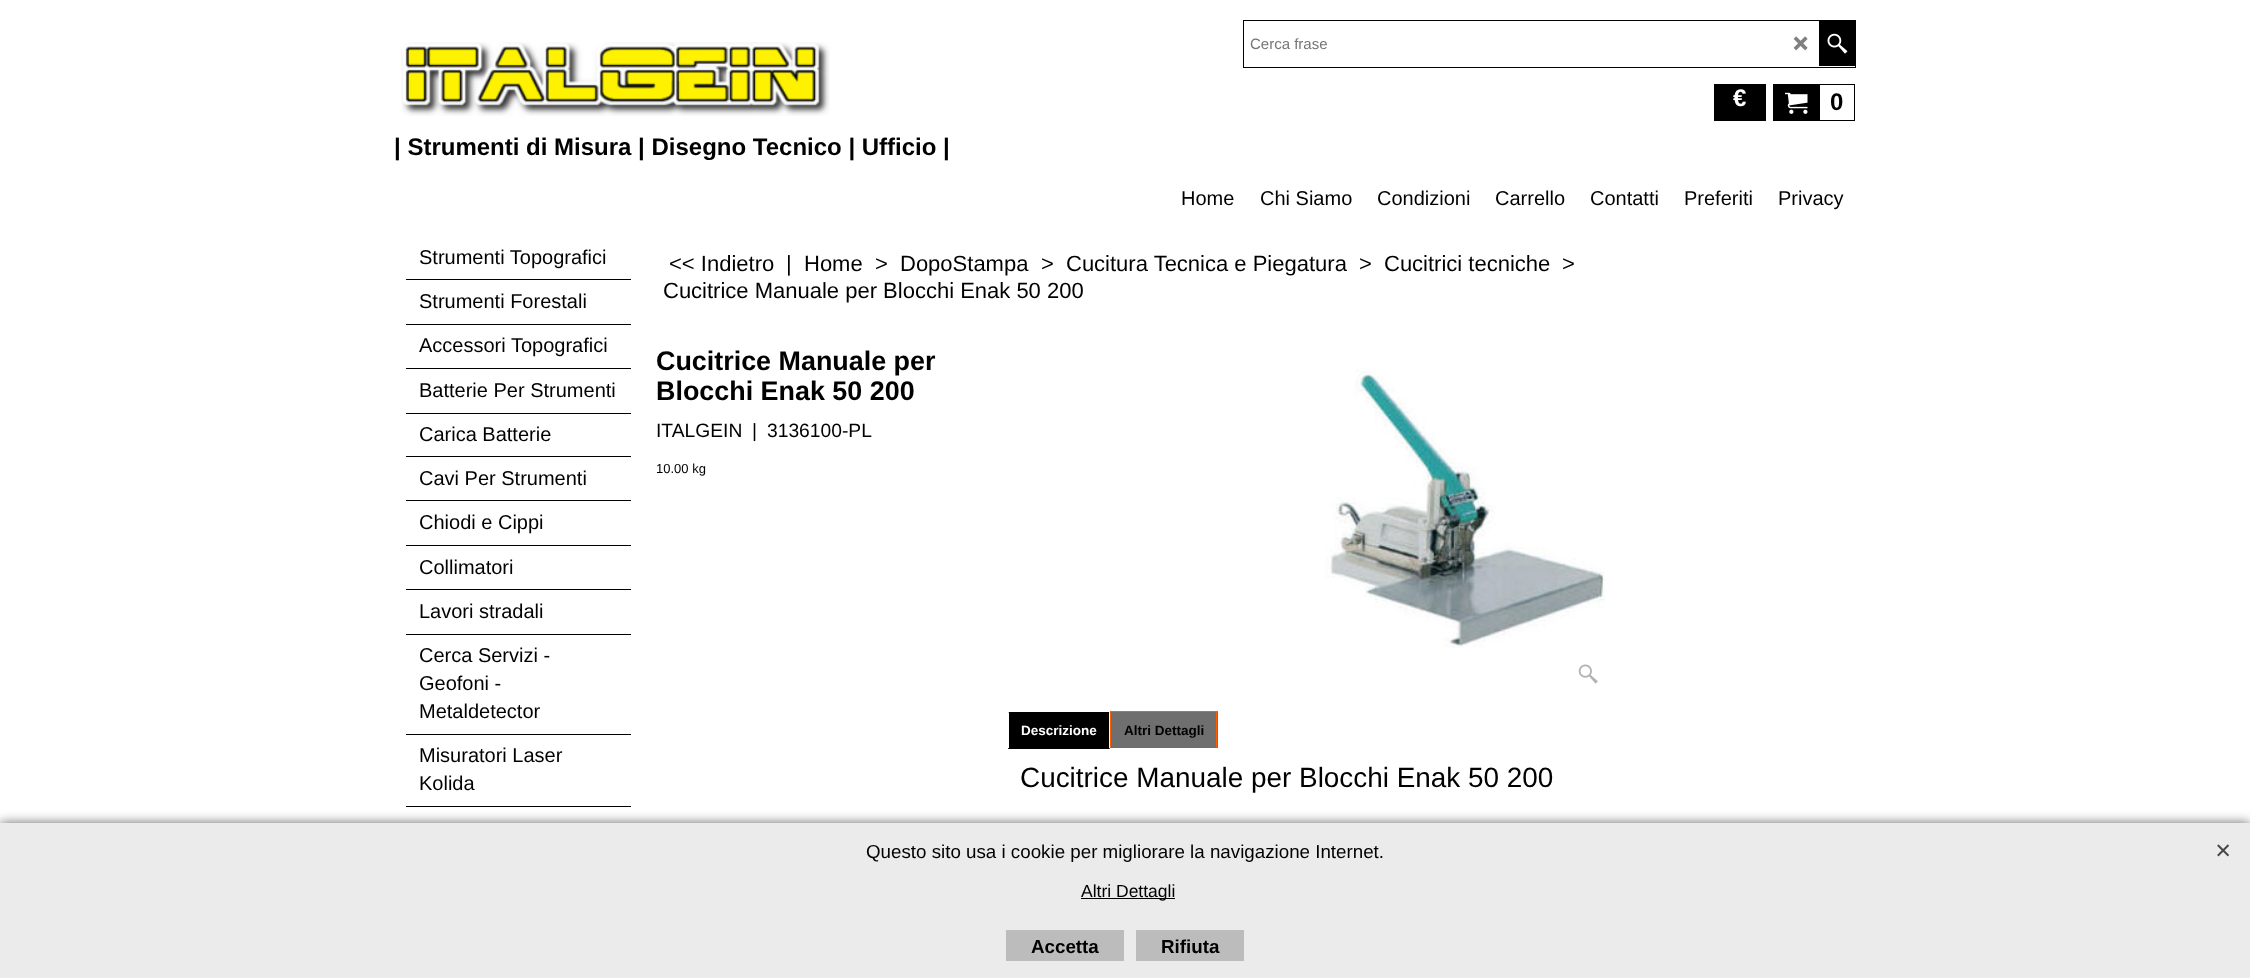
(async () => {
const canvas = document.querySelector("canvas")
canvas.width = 2250
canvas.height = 978
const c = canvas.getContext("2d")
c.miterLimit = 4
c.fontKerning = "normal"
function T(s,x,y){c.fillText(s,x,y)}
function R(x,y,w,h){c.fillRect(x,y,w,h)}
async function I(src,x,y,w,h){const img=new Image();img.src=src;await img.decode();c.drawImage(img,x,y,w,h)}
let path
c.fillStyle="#fff"
R(0,0,2250,978)
c.strokeStyle="#000"
c.strokeRect(1243.5,20.5,612,47)
c.font="15px Liberation Sans"
c.fillStyle="#757575"
T("Cerca frase",1250,49)
await I("1.png",1793,36,15,15)
c.fillStyle="#000"
R(1819,21,36,45)
await I("2.png",1827,33,21,21)
R(1714,84,52,37)
c.font="bold 24px Liberation Sans"
c.fillStyle="#fff"
T("€",1733,106)
c.fillStyle="#000"
R(1773,84,46,37)
await I("3.png",1785,92,23,22)
c.strokeRect(1819.5,84.5,35,36)
T("0",1830,110)
await I("4.png",401,42,429,74)
T("| Strumenti di Misura | Disegno Tecnico | Ufficio |",394,155)
c.font="20px Liberation Sans"
T("Home",1181,205)
T("Chi Siamo",1260,205)
T("Condizioni",1377,205)
T("Carrello",1495,205)
T("Contatti",1590,205)
T("Preferiti",1684,205)
T("Privacy",1778,205)
R(406,279,225,1)
T("Strumenti Topografici",419,264)
R(406,324,225,1)
T("Strumenti Forestali",419,308)
R(406,368,225,1)
T("Accessori Topografici",419,352)
R(406,413,225,1)
T("Batterie Per Strumenti",419,397)
R(406,456,225,1)
T("Carica Batterie",419,441)
R(406,500,225,1)
T("Cavi Per Strumenti",419,485)
R(406,545,225,1)
T("Chiodi e Cippi",419,529)
R(406,589,225,1)
T("Collimatori",419,574)
R(406,634,225,1)
T("Lavori stradali",419,618)
R(406,734,225,1)
T("Cerca Servizi -",419,662)
T("Geofoni -",419,690)
T("Metaldetector",419,718)
R(406,806,225,1)
T("Misuratori Laser",419,762)
T("Kolida",419,790)
c.font="22px Liberation Sans"
T("<< Indietro",669,271)
T("|",786,271)
T("Home",804,271)
T(">",875,271)
T("DopoStampa",900,271)
T(">",1041,271)
T("Cucitura Tecnica e Piegatura",1066,271)
T(">",1359,271)
T("Cucitrici tecniche",1384,271)
T(">",1562,271)
T("Cucitrice Manuale per Blocchi Enak 50 200",663,298)
c.font="bold 26.9px Liberation Sans"
T("Cucitrice Manuale per",656,370)
T("Blocchi Enak 50 200",656,400)
c.font="19.25px Liberation Sans"
T("ITALGEIN",656,437)
T("|",752,437)
T("3136100-PL",767,437)
c.font="13px Liberation Sans"
T("10.00 kg",656,473)
await I("5.png",1325,368,280,280)
await I("6.png",1578,664,20,20)
R(1008,712,102,37)
c.fillStyle="#fff"
path = new Path2D("M1110 711v38l-1-1.5v-35z")
c.fill(path)
c.save()
c.beginPath()
c.rect(1008,711,848,38)
c.clip()
path = new Path2D("M1007.5 749v-38l1.5 1.5v35z")
c.fill(path)
c.restore()
c.font="bold 13.5px Liberation Sans"
T("Descrizione",1021,735)
c.fillStyle="#6f6f6f"
R(1111,712,107,36)
c.fillStyle="#ff5f00"
R(1110,711,108,1)
R(1216,711,1,37)
R(1110,711,1,37)
c.fillStyle="#000"
T("Altri Dettagli",1124,735)
c.font="27.9px Liberation Sans"
T("Cucitrice Manuale per Blocchi Enak 50 200",1020,787)
c.fillStyle="#666"
c.filter="blur(6px)"
c.beginPath()
c.rect(0,823,2250,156)
c.fill()
c.filter="none"
c.fillStyle="#ebebeb"
R(0,823,2250,155)
c.font="18.75px Liberation Sans"
c.fillStyle="#000"
T("Questo sito usa i cookie per migliorare la navigazione Internet.",866,858)
R(1081,898,94,1)
c.font="17.5px Liberation Sans"
T("Altri Dettagli",1081,897)
await I("7.png",2217,844,13,13)
c.fillStyle="#bcbcbc"
R(1006,930,118,31)
c.font="bold 18.75px Liberation Sans"
c.fillStyle="#000"
T("Accetta",1031,953)
c.fillStyle="#bcbcbc"
R(1136,930,108,31)
c.fillStyle="#000"
T("Rifiuta",1161,953)
})()
